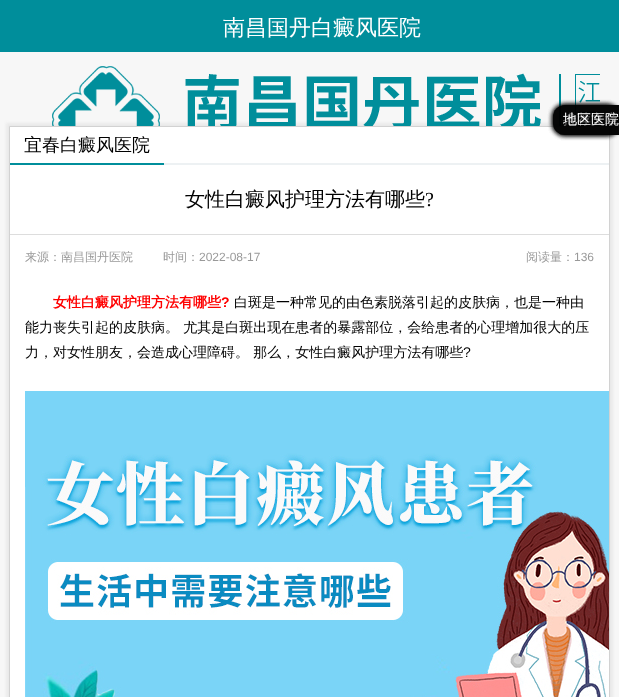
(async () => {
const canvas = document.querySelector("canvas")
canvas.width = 619
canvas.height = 697
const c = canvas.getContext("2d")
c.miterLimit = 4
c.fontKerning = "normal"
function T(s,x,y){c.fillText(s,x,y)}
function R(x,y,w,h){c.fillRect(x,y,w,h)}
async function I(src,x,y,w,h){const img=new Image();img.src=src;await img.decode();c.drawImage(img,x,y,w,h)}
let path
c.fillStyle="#f7f7f7"
R(0,0,619,697)
c.fillStyle="#008e9b"
R(0,0,619,52)
c.font="500 22px WenQuanYi Zen Hei"
c.fillStyle="#fff"
T("南昌国丹白癜风医院",223,35)
c.fillStyle="#e9e9e9"
c.filter="blur(1.5px)"
c.beginPath()
c.rect(6,123,607,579)
c.fill()
c.filter="none"
await I("1.png",52,66,548,60)
c.fillStyle="#fff"
c.beginPath()
c.rect(9.5,126.5,600,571)
c.fill()
c.strokeStyle="#d2d2d2"
c.stroke()
c.save()
path = new Path2D("M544 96h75v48h-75zm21 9h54v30h-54c-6.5 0-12-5.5-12-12v-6c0-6.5 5.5-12 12-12z")
c.clip(path,"evenodd")
c.fillStyle="#00000099"
c.filter="blur(2.5px)"
c.beginPath()
c.roundRect(553,105,66,30,12)
c.fill()
c.filter="none"
c.restore()
c.fillStyle="#00000099"
c.beginPath()
c.roundRect(553,105,66,30,[12,0,0,12])
c.fill()
c.save()
path = new Path2D("M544 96h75v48h-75zm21 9h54v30h-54c-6.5 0-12-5.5-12-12v-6c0-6.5 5.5-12 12-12z")
c.clip(path,"evenodd")
c.filter="blur(2.5px)"
c.beginPath()
c.roundRect(553,105,66,30,12)
c.fill()
c.filter="none"
c.restore()
c.beginPath()
c.roundRect(553,105,66,30,[12,0,0,12])
c.fill()
c.save()
path = new Path2D("M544 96h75v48h-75zm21 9h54v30h-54c-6.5 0-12-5.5-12-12v-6c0-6.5 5.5-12 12-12z")
c.clip(path,"evenodd")
c.filter="blur(2.5px)"
c.beginPath()
c.roundRect(553,105,66,30,12)
c.fill()
c.filter="none"
c.restore()
c.beginPath()
c.roundRect(553,105,66,30,[12,0,0,12])
c.fill()
c.save()
path = new Path2D("M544 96h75v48h-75zm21 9h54v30h-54c-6.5 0-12-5.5-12-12v-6c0-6.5 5.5-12 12-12z")
c.clip(path,"evenodd")
c.filter="blur(2.5px)"
c.beginPath()
c.roundRect(553,105,66,30,12)
c.fill()
c.filter="none"
c.restore()
c.font="500 14px WenQuanYi Zen Hei"
c.fillStyle="#fff"
T("推荐文章",563,124)
c.fillStyle="#00000099"
c.beginPath()
c.roundRect(553,105,66,30,[12,0,0,12])
c.fill()
c.fillStyle="#fff"
T("地区医院",563,124)
c.fillStyle="#edf1f3"
R(164,163,445,2)
c.fillStyle="#008e9b"
R(10,163,154,2)
c.font="500 18px WenQuanYi Zen Hei"
c.fillStyle="#000"
T("宜春白癜风医院",24,151)
c.fillStyle="#ddd"
R(10,234,599,1)
c.font="500 20px WenQuanYi Zen Hei"
c.fillStyle="#000"
T("女性白癜风护理方法有哪些",185,206)
c.font="20px Liberation Serif"
T("?",425,206)
c.font="500 12px WenQuanYi Zen Hei"
c.fillStyle="#999"
T("来源：南昌国丹医院",25,261)
T("时间：",163,261)
c.font="12px Liberation Sans"
T("2022-08-17",199,261)
c.font="500 12px WenQuanYi Zen Hei"
T("阅读量：",526,261)
c.font="12px Liberation Sans"
T("136",574,261)
c.font="bold 14px WenQuanYi Zen Hei"
c.fillStyle="#f00"
T("女性白癜风护理方法有哪些",53,307)
c.font="bold 14px Liberation Sans"
T("?",221,307)
c.font="500 14px WenQuanYi Zen Hei"
c.fillStyle="#000"
T("白斑是一种常见的由色素脱落引起的皮肤病，也是一种由",234,307)
T("能力丧失引起的皮肤病。 尤其是白斑出现在患者的暴露部位，会给患者的心理增加很大的压",25,332)
T("力，对女性朋友，会造成心理障碍。 那么，女性白癜风护理方法有哪些",25,357)
c.font="14px Liberation Sans"
T("?",463,357)
await I("2.png",25,391,584,306)
})()
